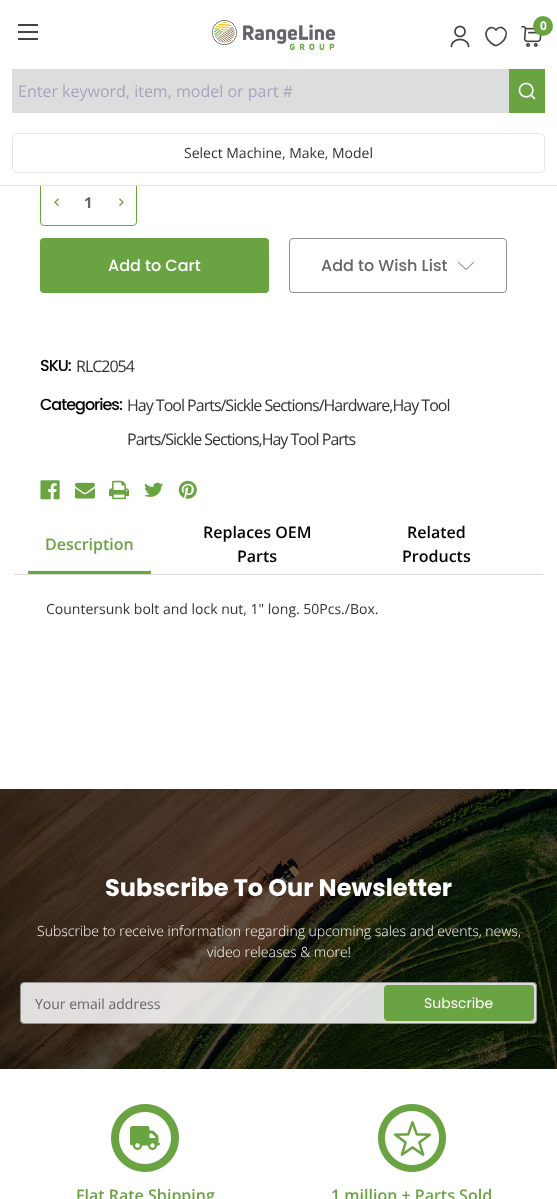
(async () => {
const canvas = document.querySelector("canvas")
canvas.width = 557
canvas.height = 1199
const c = canvas.getContext("2d")
c.miterLimit = 4
c.fontKerning = "normal"
function T(s,x,y){c.fillText(s,x,y)}
function R(x,y,w,h){c.fillRect(x,y,w,h)}
function Q(x,y,w,h,r){c.beginPath();c.roundRect(x,y,w,h,r);c.fill()}
async function I(src,x,y,w,h){const img=new Image();img.src=src;await img.decode();c.drawImage(img,x,y,w,h)}
let path
c.fillStyle="#fff"
R(0,0,557,1199)
c.beginPath()
c.roundRect(40.5,178.5,96,47,3.5)
c.strokeStyle="#6aa342"
c.stroke()
R(40,178,97,7)
c.fillStyle="#e7e7e7"
R(0,185,557,1)
c.fillStyle="#444"
R(18,31,20,2)
R(18,24,20,2)
R(18,38,20,2)
await I("1.png",212,20,124,31)
await I("2.png",450,25,20,23)
path = new Path2D("M496.5 45.5c-1.5 .5-4-1.5-5.5-2.5c-11.5-9.5-.5-20.5 5-13c4.5-6.5 14.5 .5 8 10c-2 2.5-4.5 4.5-7.5 5.5z")
c.strokeStyle="#434343"
c.lineWidth=1.7
c.lineCap="round"
c.lineJoin="round"
c.stroke(path)
await I("3.png",521,26,21,21)
c.fillStyle="#6aa342"
c.beginPath()
c.arc(543,26,10,0,7)
c.fill()
c.font="bold 12px Open Sans"
c.fillStyle="#fff"
T("0",540,30)
c.fillStyle="#ddddde"
R(12,69,497,44)
c.font="16px Open Sans"
c.fillStyle="#a6a5bb"
T("Enter keyword, item, model or part #",18,97)
c.fillStyle="#6aa342"
R(509,69,36,44)
await I("4.png",518,82,18,18)
c.beginPath()
c.roundRect(12.5,133.5,532,39,4.5)
c.strokeStyle="#e6e6e6"
c.lineWidth=1
c.lineJoin="miter"
c.stroke()
c.font="14px Open Sans"
c.fillStyle="#333"
T("Select Machine, Make, Model",184,158)
await I("5.png",54,198,5,9)
c.font="bold 15px Open Sans"
c.fillStyle="#666"
T("1",84,208)
await I("6.png",119,198,5,9)
c.fillStyle="#6aa342"
Q(40,238,229,55,4)
c.font="500 16px Poppins"
c.fillStyle="#fff"
T("Add to Cart",108,271)
c.beginPath()
c.roundRect(289.5,238.5,217,54,3.5)
c.strokeStyle="#8f8f8f"
c.stroke()
c.fillStyle="#666"
T("Add to Wish List",321,271)
await I("7.png",458,262,16,8)
c.letterSpacing="-1px"
c.fillStyle="#000"
T("SKU:",40,371)
c.font="16px Open Sans"
c.fillStyle="#333"
T("RLC2054",76,372)
c.font="500 16px Poppins"
c.fillStyle="#000"
T("Categories:",40,410)
c.font="16px Open Sans"
c.fillStyle="#333"
T("Hay Tool Parts/Sickle Sections/Hardware,Hay Tool",127,411)
T("Parts/Sickle Sections,Hay Tool Parts",127,445)
await I("8.png",40,480,20,20)
await I("9.png",75,482,20,17)
await I("10.png",109,480,20,20)
await I("11.png",144,482,20,15)
await I("12.png",178,480,19,19)
path = new Path2D("M151 572l-2 .5h-99h-20l-2-.5")
c.strokeStyle="#6aa342"
c.lineWidth=3
c.lineCap="butt"
c.stroke(path)
c.letterSpacing="0px"
c.font="600 16px Open Sans"
c.fillStyle="#6aa342"
T("Description",45,550)
c.fillStyle="#000"
T("Replaces OEM",203,538)
T("Parts",237,562)
T("Related",407,538)
T("Products",402,562)
c.fillStyle="#dbdbdb"
R(14,574,529,1)
c.font="14px Open Sans"
c.fillStyle="#333"
T("Countersunk bolt and lock nut, 1\" long. 50Pcs./Box.",46,614)
await I("13.png",0,789,557,280)
c.font="bold 24px Poppins"
c.fillStyle="#fff"
T("Subscribe To Our Newsletter",105,896)
c.font="300 14px Open Sans"
T("Subscribe to receive information regarding upcoming sales and events, news,",37,936)
T("video releases & more!",207,957)
c.fillStyle="#ffffffd9"
c.beginPath()
c.roundRect(20.5,982.5,516,41,3.5)
c.fill()
c.strokeStyle="#8f8f8f"
c.lineWidth=1
c.stroke()
c.font="14px Open Sans"
c.fillStyle="#666"
T("Your email address",35,1009)
c.fillStyle="#6aa342"
Q(384,985,150,36,4)
c.font="14px Poppins"
c.fillStyle="#fff"
T("Subscribe",424,1008)
await I("14.png",111,1104,68,68)
c.font="600 16px Open Sans"
c.fillStyle="#6aa342"
T("Flat Rate Shipping",76,1201)
await I("15.png",378,1104,68,68)
T("1 million + Parts Sold",331,1201)
})()
